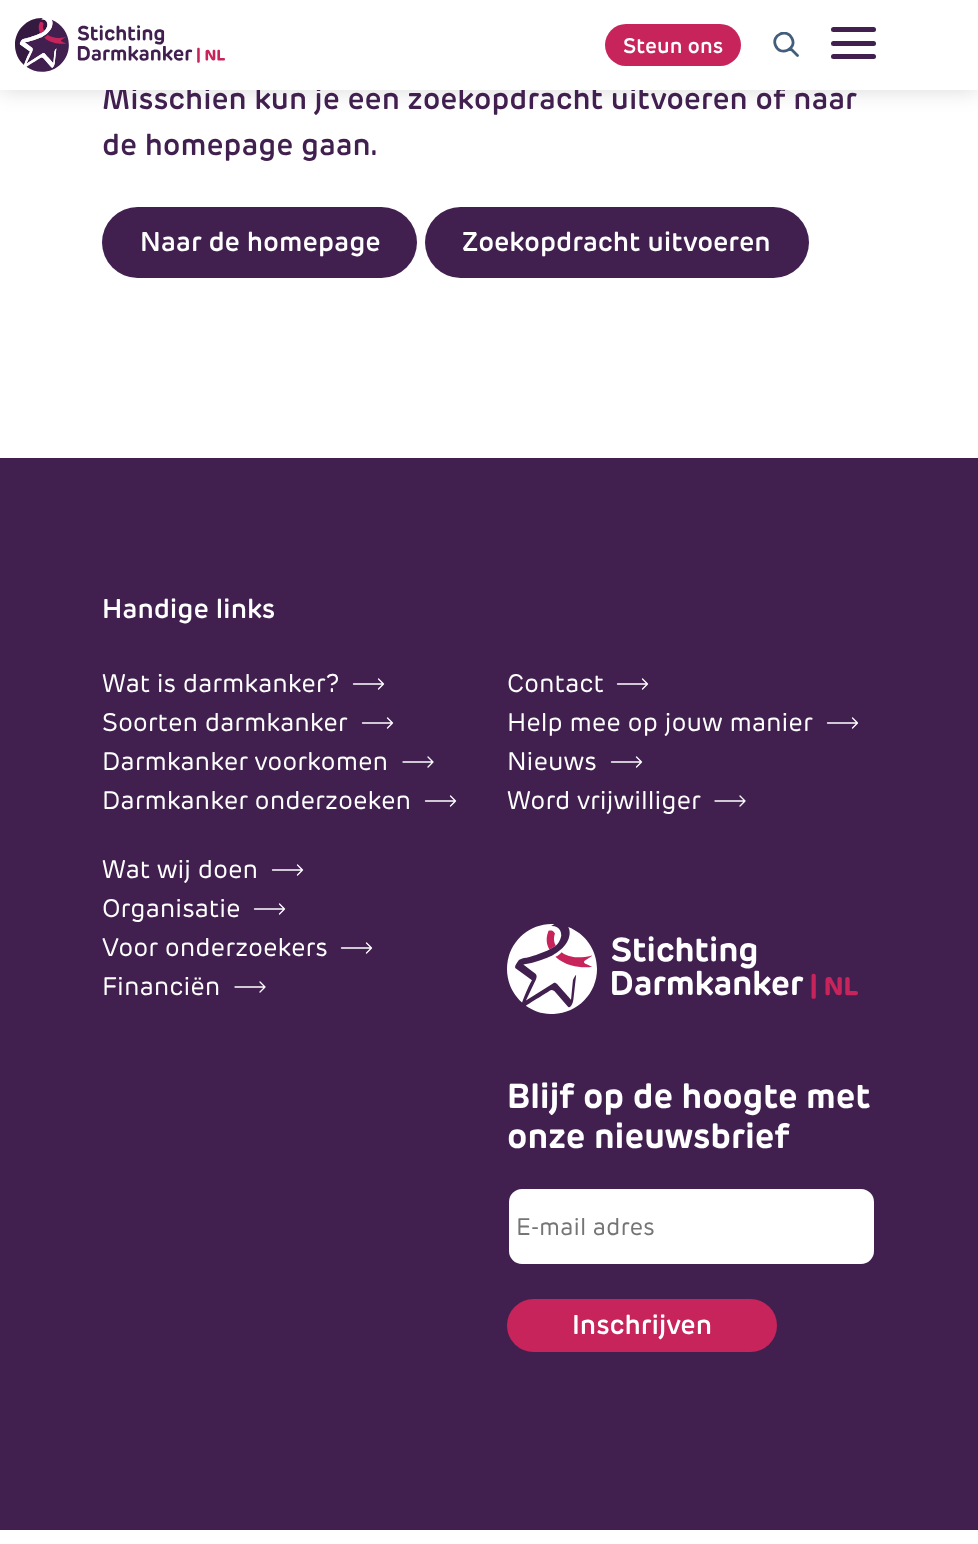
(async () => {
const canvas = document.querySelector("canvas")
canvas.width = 978
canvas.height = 1544
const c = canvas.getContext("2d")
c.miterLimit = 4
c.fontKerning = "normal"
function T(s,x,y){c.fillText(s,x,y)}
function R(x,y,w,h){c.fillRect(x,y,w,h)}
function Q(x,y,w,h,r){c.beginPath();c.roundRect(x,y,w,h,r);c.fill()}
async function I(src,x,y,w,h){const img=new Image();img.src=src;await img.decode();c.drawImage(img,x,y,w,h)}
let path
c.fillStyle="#fff"
R(0,0,978,1544)
c.fillStyle="#00000026"
c.filter="blur(11px)"
c.beginPath()
c.rect(0,0,978,90)
c.fill()
c.filter="none"
c.font="600 30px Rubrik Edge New"
c.fillStyle="#412050"
T("Misschien kun je een zoekopdracht uitvoeren of naar",102,109)
c.fillStyle="#fff"
R(0,0,978,90)
await I("1.png",15,18,210,54)
c.fillStyle="#c6245b"
Q(605,24,136,42,21)
c.font="600 21px Rubrik Edge New"
c.fillStyle="#fff"
T("Steun ons",623,53)
c.save()
c.beginPath()
c.rect(773,32,27,27)
c.clip()
path = new Path2D("M775.5 45.5c4.5 11.5 22 3.5 16.5-7c-5-11-21-3.5-16.5 7zm15 3l7 7")
c.strokeStyle="#425e7c"
c.lineWidth=2.8
c.lineCap="round"
c.lineJoin="round"
c.stroke(path)
c.restore()
c.fillStyle="#412050"
Q(831,27,45,5,2.5)
Q(831,41,45,5,2.5)
Q(831,54,45,5,2.5)
c.font="600 30px Rubrik Edge New"
T("de homepage gaan.",102,155)
Q(102,207,315,71,35.5)
c.font="600 27px Rubrik Edge New"
c.fillStyle="#fff"
T("Naar de homepage",140,251)
c.fillStyle="#412050"
Q(425,207,384,71,35.5)
c.fillStyle="#fff"
T("Zoekopdracht uitvoeren",462,251)
c.fillStyle="#412050"
R(0,458,978,1072)
c.fillStyle="#fff"
T("Handige links",102,618)
c.font="25.5px Rubrik Edge New"
T("Wat is darmkanker?",102,692)
path = new Path2D("M383.5 684h-30m25 5l5-5l-5-5")
c.strokeStyle="#fff"
c.lineWidth=1.3
c.lineCap="round"
c.lineJoin="round"
c.stroke(path)
T("Soorten darmkanker",102,731)
path = new Path2D("M392.5 723h-30m25 5l5-5l-5-5")
c.stroke(path)
T("Darmkanker voorkomen",102,770)
path = new Path2D("M433 762h-30m25 5l5-5l-5-5")
c.stroke(path)
T("Darmkanker onderzoeken",102,809)
path = new Path2D("M455.5 801h-30m25 5l5-5l-5-5")
c.stroke(path)
T("Contact",507,692)
path = new Path2D("M647.5 684h-30m25 5l5-5l-5-5")
c.stroke(path)
T("Help mee op jouw manier",507,731)
path = new Path2D("M857.5 723h-30m25 5l5-5l-5-5")
c.stroke(path)
T("Nieuws",507,770)
path = new Path2D("M641.5 762h-30m25 5l5-5l-5-5")
c.stroke(path)
T("Word vrijwilliger",507,809)
path = new Path2D("M745 801h-30m25 5l5-5l-5-5")
c.stroke(path)
T("Wat wij doen",102,878)
path = new Path2D("M302.5 870h-30m25 5l5-5l-5-5")
c.stroke(path)
T("Organisatie",102,917)
path = new Path2D("M284.5 909h-30m25 5l5-5l-5-5")
c.stroke(path)
T("Voor onderzoekers",102,956)
path = new Path2D("M371.5 948h-30m25 5l5-5l-5-5")
c.stroke(path)
T("Financiën",102,995)
path = new Path2D("M265 987h-30m25 5l5-5l-5-5")
c.stroke(path)
await I("2.png",507,924,351,90)
c.font="bold 34.5px Rubrik Edge New"
T("Blijf op de hoogte met",507,1108)
T("onze nieuwsbrief",507,1148)
c.beginPath()
c.roundRect(508,1188,367,77,14)
c.fill()
c.strokeStyle="#412050"
c.lineWidth=2
c.lineJoin="miter"
c.stroke()
c.font="24px Rubrik Edge New"
c.fillStyle="#757575"
T("E-mail adres",516,1235)
c.fillStyle="#c6245b"
Q(507,1299,270,53,26.5)
c.font="600 27px Rubrik Edge New"
c.fillStyle="#fff"
T("Inschrijven",572,1334)
})()
